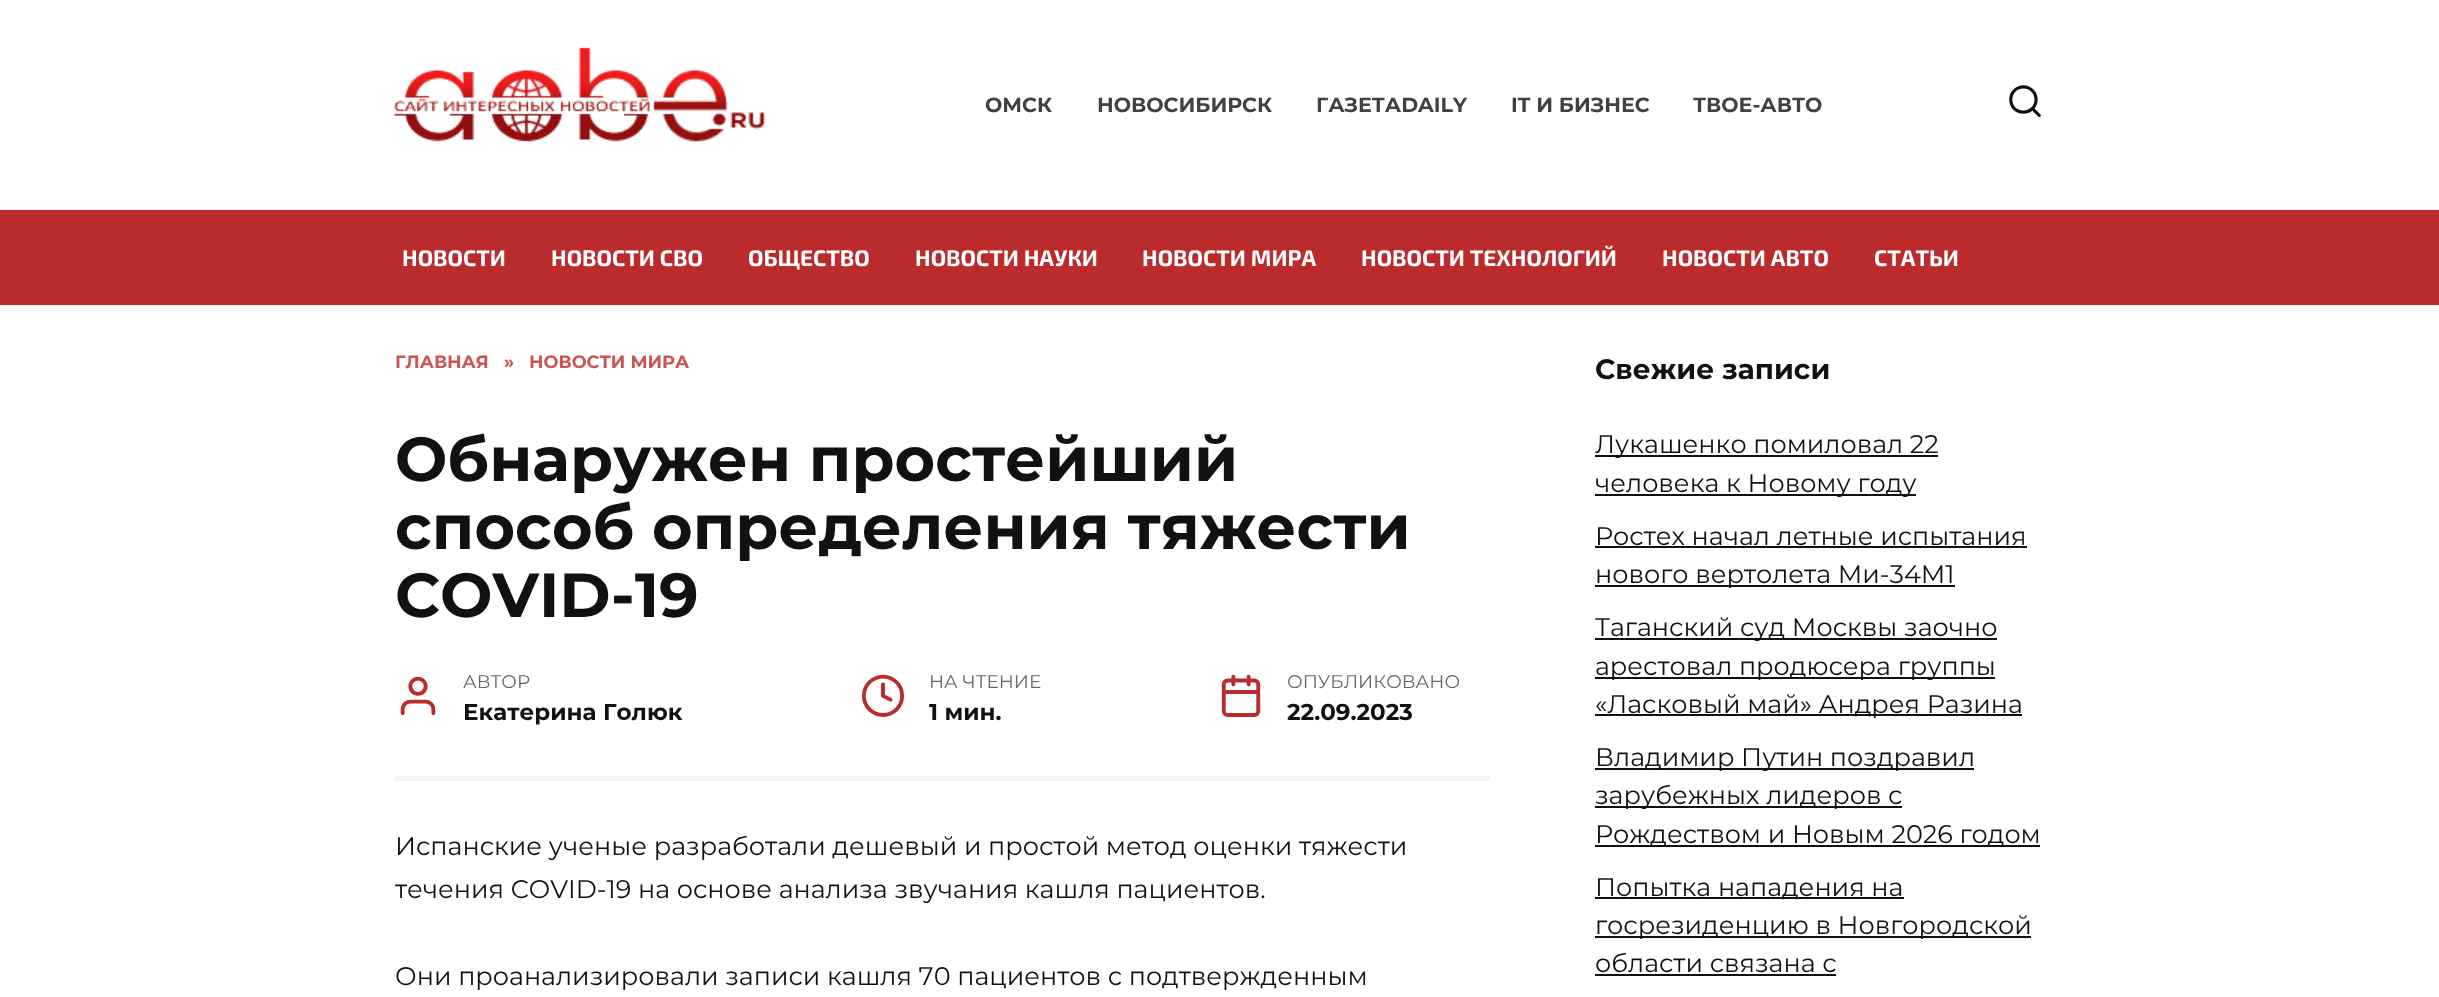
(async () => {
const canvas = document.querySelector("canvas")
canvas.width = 2439
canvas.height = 997
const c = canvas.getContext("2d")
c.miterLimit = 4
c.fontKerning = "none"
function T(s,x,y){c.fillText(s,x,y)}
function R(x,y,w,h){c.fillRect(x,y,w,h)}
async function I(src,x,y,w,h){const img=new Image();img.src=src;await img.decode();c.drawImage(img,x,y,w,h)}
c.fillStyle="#fff"
R(0,0,2439,997)
c.fillStyle="#f2f5f9"
R(0,209,2439,1)
await I("1.png",394,47,372,95)
c.font="bold 20.5px Montserrat"
c.fillStyle="#414141"
T("ОМСК",985,112)
T("НОВОСИБИРСК",1097,112)
T("ГАЗЕТАDAILY",1316,112)
T("IT И БИЗНЕС",1511,112)
T("ТВОЕ-АВТО",1693,112)
c.font="38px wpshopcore"
c.fillStyle="#111"
T("🔍",2006,117)
c.fillStyle="#bc2b2b"
R(0,210,2439,95)
c.font="bold 22.5px 'Exo 2'"
c.fillStyle="#fff"
T("НОВОСТИ",402,266)
T("НОВОСТИ СВО",551,266)
T("ОБЩЕСТВО",748,266)
T("НОВОСТИ НАУКИ",915,266)
T("НОВОСТИ МИРА",1142,266)
T("НОВОСТИ ТЕХНОЛОГИЙ",1361,266)
T("НОВОСТИ АВТО",1662,266)
T("СТАТЬИ",1874,266)
c.font="bold 17.75px Montserrat"
c.fillStyle="#c95555"
T("ГЛАВНАЯ",395,368)
T("»",504,368)
T("НОВОСТИ МИРА",529,368)
c.font="bold 62.2px Montserrat"
c.fillStyle="#111"
T("Обнаружен простейший",395,481)
T("способ определения тяжести",395,549)
T("COVID-19",395,617)
c.fillStyle="#f2f2f2"
R(395,776,1095,5)
c.font="46px wpshopcore"
c.fillStyle="#bc2b2b"
T("👤",395,715)
c.font="18.4px Montserrat"
c.fillStyle="#666"
T("АВТОР",463,688)
c.font="bold 23px Montserrat"
c.fillStyle="#111"
T("Екатерина Голюк",463,720)
c.font="46px wpshopcore"
c.fillStyle="#bc2b2b"
T("🕒",860,715)
c.font="18.4px Montserrat"
c.fillStyle="#666"
T("НА ЧТЕНИЕ",929,688)
c.font="bold 23px Montserrat"
c.fillStyle="#111"
T("1 мин.",929,720)
c.font="46px wpshopcore"
c.fillStyle="#bc2b2b"
T("📅",1218,715)
c.font="18.4px Montserrat"
c.fillStyle="#666"
T("ОПУБЛИКОВАНО",1287,688)
c.font="bold 23px Montserrat"
c.fillStyle="#111"
T("22.09.2023",1287,720)
c.font="25.5px Montserrat"
T("Испанские ученые разработали дешевый и простой метод оценки тяжести",395,855)
T("течения COVID-19 на основе анализа звучания кашля пациентов.",395,898)
T("Они проанализировали записи кашля 70 пациентов с подтвержденным",395,985)
c.font="bold 28px Montserrat"
T("Свежие записи",1595,379)
R(1595,455,343,2)
c.font="25.5px Montserrat"
T("Лукашенко помиловал 22",1595,453)
R(1595,494,321,2)
T("человека к Новому году",1595,492)
T("Ростех начал летные испытания",1595,545)
R(1595,546,432,2)
R(1595,585,360,2)
T("нового вертолета Ми-34М1",1595,583)
R(1595,638,402,2)
T("Таганский суд Москвы заочно",1595,636)
R(1595,677,400,2)
T("арестовал продюсера группы",1595,675)
R(1595,714,427,2)
T("«Ласковый май» Андрея Разина",1595,713)
R(1595,768,379,2)
T("Владимир Путин поздравил",1595,766)
R(1595,806,307,2)
T("зарубежных лидеров с",1595,804)
R(1595,845,445,2)
T("Рождеством и Новым 2026 годом",1595,843)
R(1595,897,309,2)
T("Попытка нападения на",1595,896)
R(1595,936,436,2)
T("госрезиденцию в Новгородской",1595,934)
T("области связана с",1595,972)
R(1595,974,241,2)
})()
